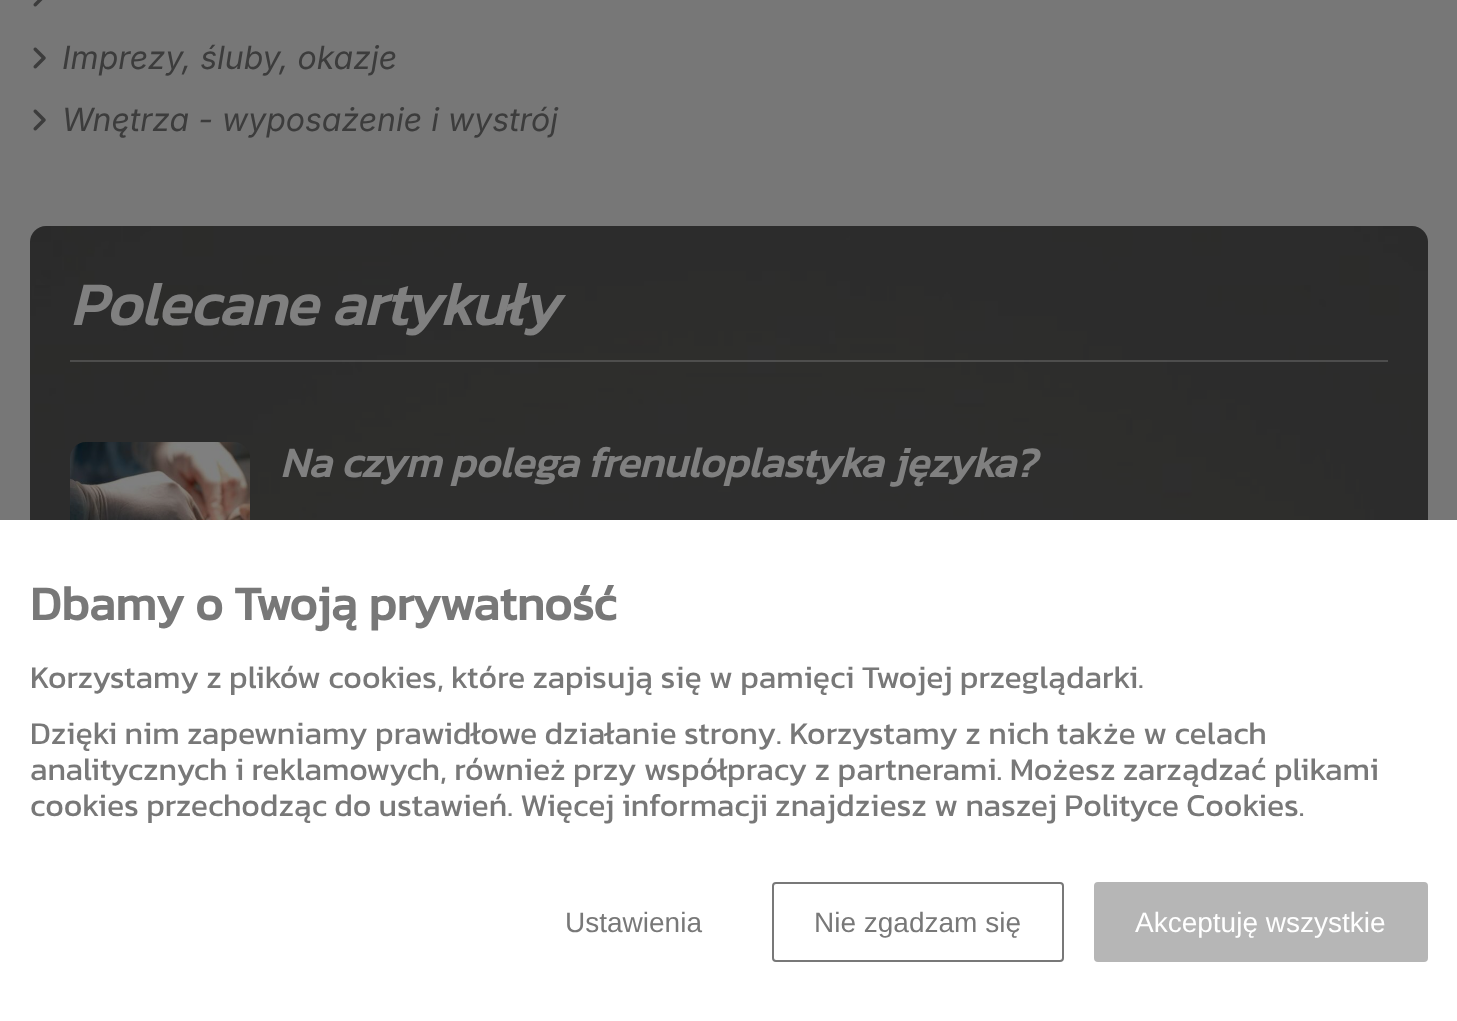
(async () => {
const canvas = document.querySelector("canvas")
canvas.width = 1457
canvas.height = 1021
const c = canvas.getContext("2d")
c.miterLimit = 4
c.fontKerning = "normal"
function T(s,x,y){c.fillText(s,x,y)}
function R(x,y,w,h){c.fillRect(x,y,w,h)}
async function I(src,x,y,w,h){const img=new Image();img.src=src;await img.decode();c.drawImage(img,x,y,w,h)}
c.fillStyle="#777"
R(0,0,1457,1021)
await I("1.png",33,0,10,7)
await I("2.png",33,47,13,22)
c.font="italic 32px Inter"
c.fillStyle="#3c3c3c"
T("Imprezy, śluby, okazje",62,69)
await I("2.png",33,109,13,22)
T("Wnętrza - wyposażenie i wystrój",62,131)
await I("3.png",30,226,1398,294)
c.fillStyle="#80808066"
R(70,360,1318,2)
c.font="italic bold 60px Kanit"
c.fillStyle="#808080"
T("Polecane artykuły",70,325)
await I("4.png",70,442,180,78)
c.font="italic bold 42px Kanit"
T("Na czym polega frenuloplastyka języka?",280,477)
c.fillStyle="#fff"
R(0,520,1457,501)
c.font="bold 48px Kanit"
c.fillStyle="#787878"
T("Dbamy o Twoją prywatność",30,620)
c.font="32px Kanit"
T("Korzystamy z plików cookies, które zapisują się w pamięci Twojej przeglądarki.",30,688)
T("Dzięki nim zapewniamy prawidłowe działanie strony. Korzystamy z nich także w celach",30,744)
T("analitycznych i reklamowych, również przy współpracy z partnerami. Możesz zarządzać plikami",30,780)
T("cookies przechodząc do ustawień. Więcej informacji znajdziesz w naszej Polityce Cookies.",30,816)
c.font="28px Liberation Sans"
T("Ustawienia",565,932)
c.beginPath()
c.roundRect(773,883,290,78,3)
c.strokeStyle="#787878"
c.lineWidth=2
c.stroke()
T("Nie zgadzam się",814,932)
c.fillStyle="#b6b6b6"
c.beginPath()
c.roundRect(1095,883,332,78,3)
c.fill()
c.strokeStyle="#b6b6b6"
c.stroke()
c.fillStyle="#fff"
T("Akceptuję wszystkie",1135,932)
})()
